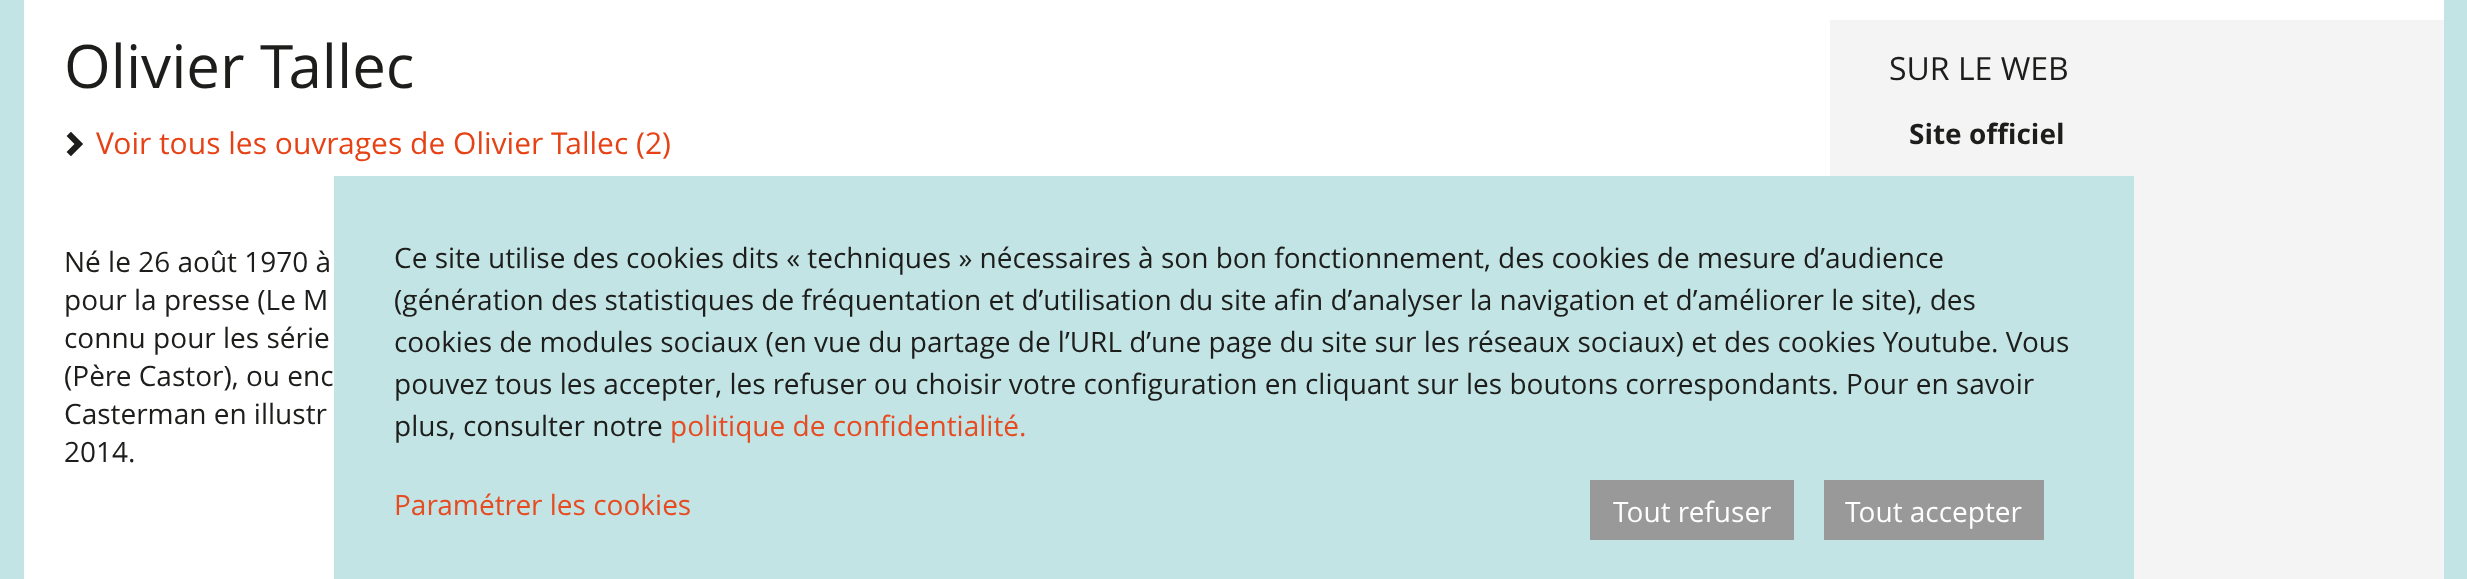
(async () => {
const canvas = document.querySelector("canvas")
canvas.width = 2467
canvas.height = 579
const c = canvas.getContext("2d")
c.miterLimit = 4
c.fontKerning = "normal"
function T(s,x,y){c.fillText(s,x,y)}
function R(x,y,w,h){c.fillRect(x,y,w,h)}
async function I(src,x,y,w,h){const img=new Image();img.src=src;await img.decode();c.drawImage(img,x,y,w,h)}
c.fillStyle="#c2e4e5"
R(0,0,2467,579)
c.fillStyle="#fff"
R(24,0,2420,579)
c.font="60px Open Sans"
c.fillStyle="#1d1d1b"
T("Olivier Tallec",64,88)
await I("1.png",66,131,17,26)
c.font="30px Open Sans"
c.fillStyle="#e64216"
T("Voir tous les ouvrages de Olivier Tallec (2)",96,154)
c.font="28px Open Sans"
c.fillStyle="#1d1d1b"
T("Né le 26 août 1970 à",64,272)
T("pour la presse (Le M",64,310)
T("connu pour les série",64,348)
T("(Père Castor), ou enc",64,386)
T("Casterman en illustr",64,424)
T("2014.",64,462)
c.fillStyle="#f4f4f4"
R(1830,20,614,559)
c.font="32px Open Sans"
c.fillStyle="#1d1d1b"
T("SUR LE WEB",1889,80)
c.font="bold 28px Open Sans"
T("Site officiel",1909,144)
c.fillStyle="#c2e4e5"
R(334,176,1800,403)
c.font="28px Open Sans"
c.fillStyle="#1d1d1b"
T("Ce site utilise des cookies dits « techniques » nécessaires à son bon fonctionnement, des cookies de mesure d’audience",394,268)
T("(génération des statistiques de fréquentation et d’utilisation du site afin d’analyser la navigation et d’améliorer le site), des",394,310)
T("cookies de modules sociaux (en vue du partage de l’URL d’une page du site sur les réseaux sociaux) et des cookies Youtube. Vous",394,352)
T("pouvez tous les accepter, les refuser ou choisir votre configuration en cliquant sur les boutons correspondants. Pour en savoir",394,394)
T("plus, consulter notre",394,436)
c.fillStyle="#e74b21"
T("politique de confidentialité.",670,436)
T("Paramétrer les cookies",394,515)
c.fillStyle="#999"
R(1590,480,204,60)
c.fillStyle="#fff"
T("Tout refuser",1613,522)
c.fillStyle="#999"
R(1824,480,220,60)
c.fillStyle="#fff"
T("Tout accepter",1845,522)
})()
